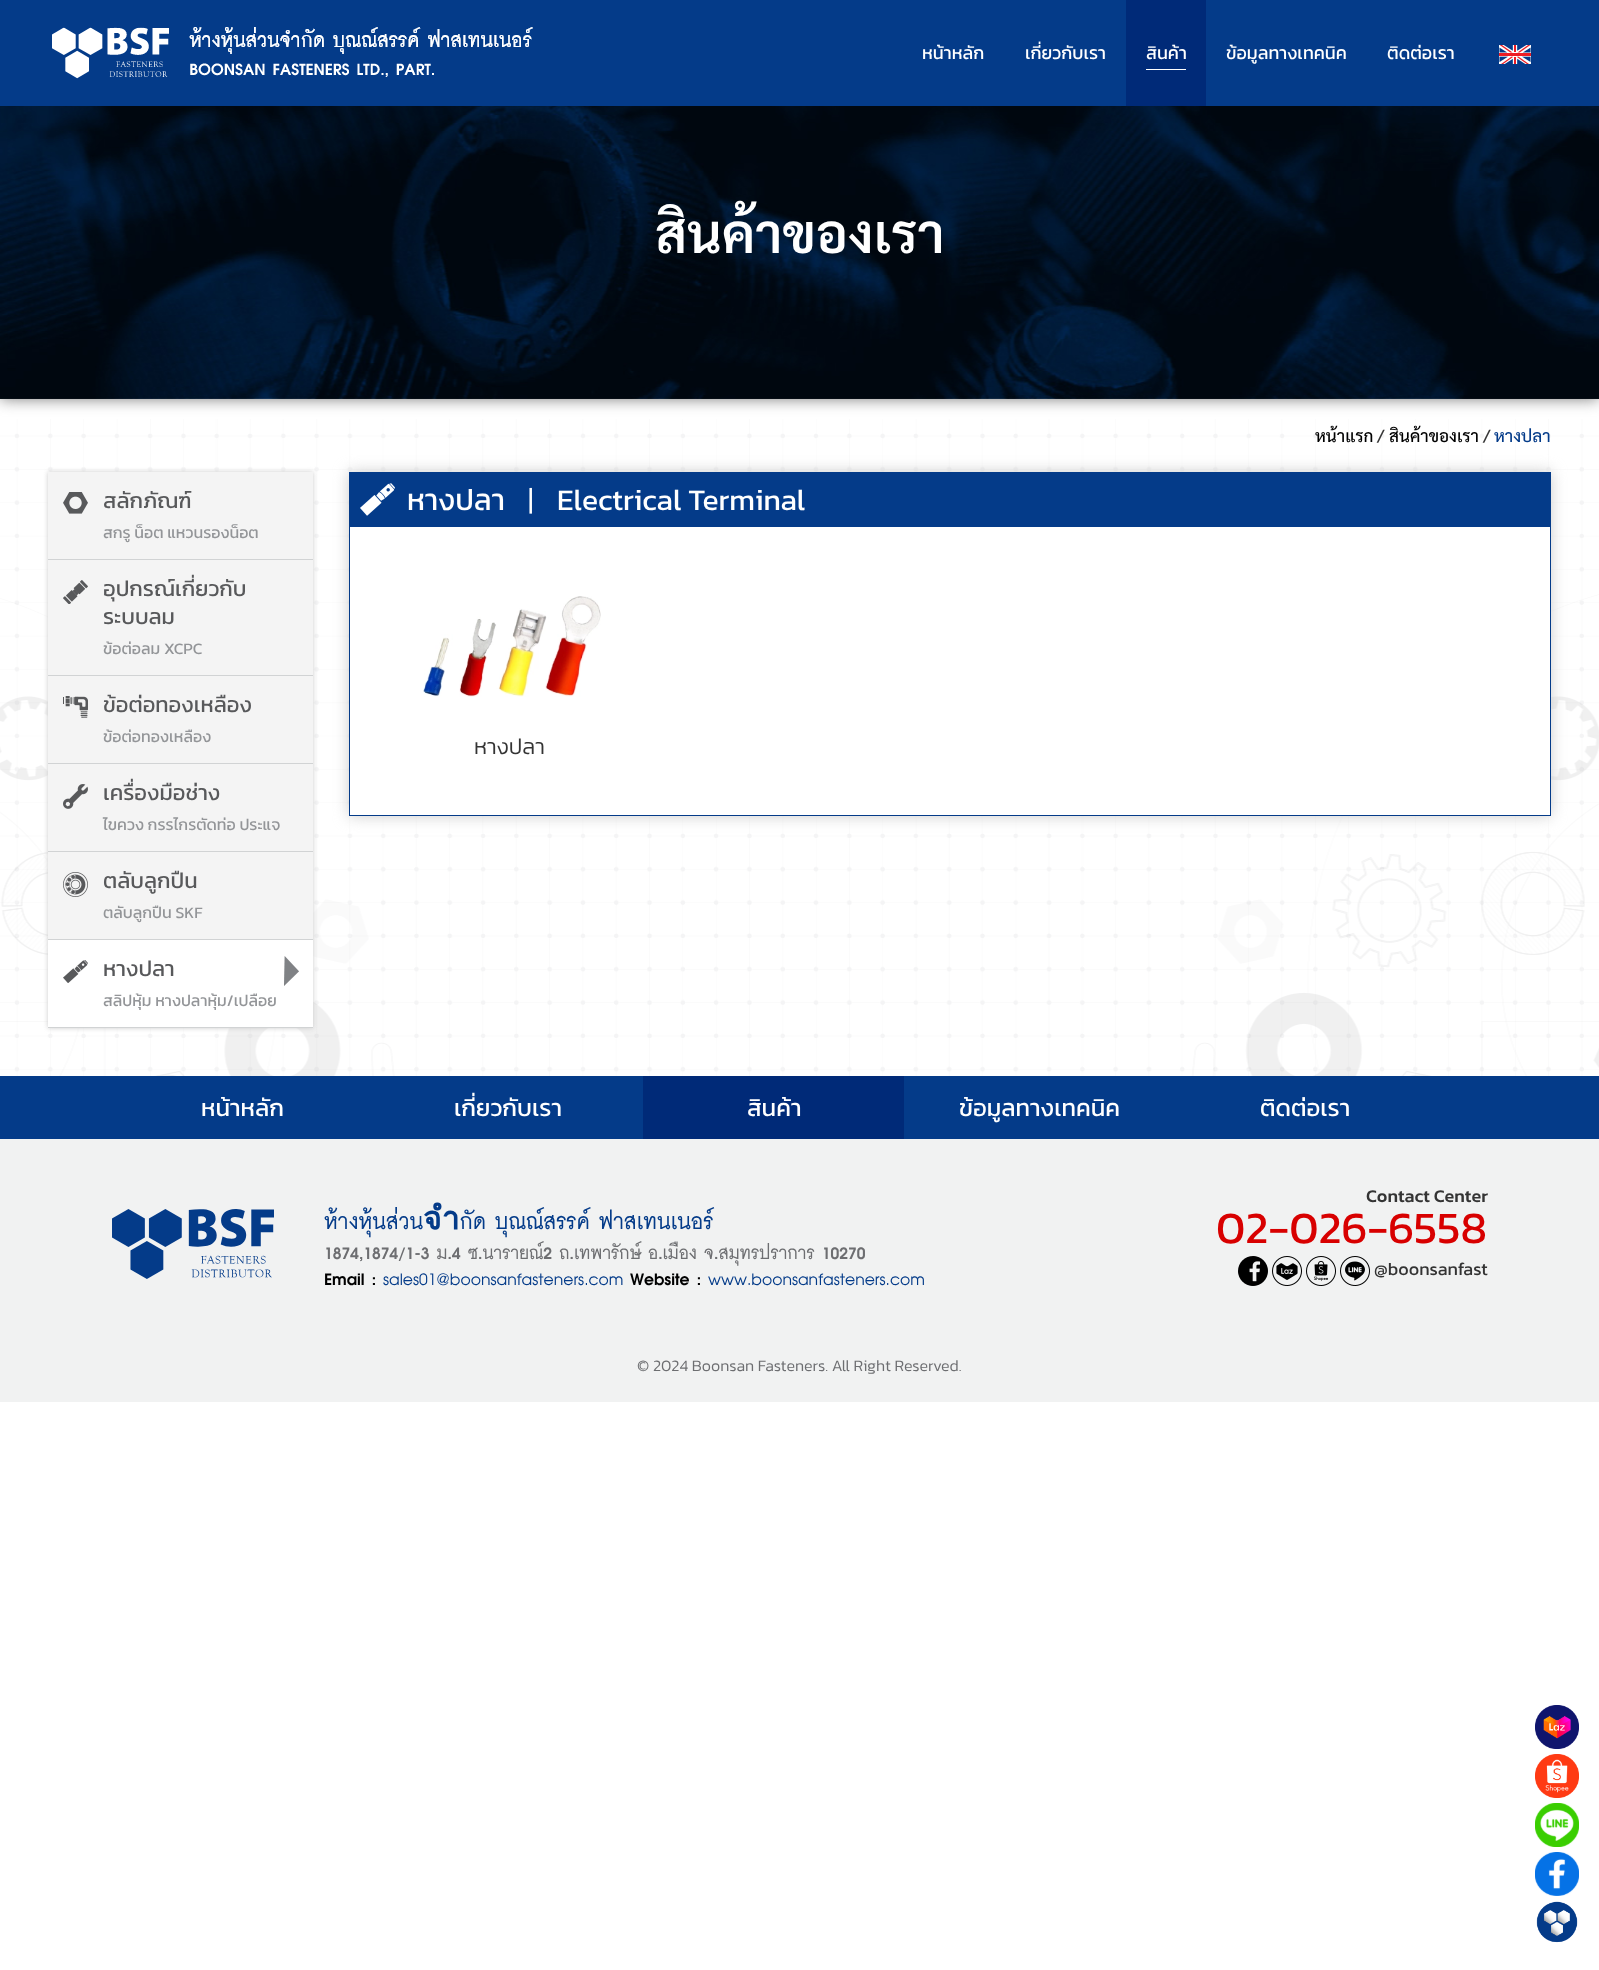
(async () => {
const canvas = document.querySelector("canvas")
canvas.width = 1599
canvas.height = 1970
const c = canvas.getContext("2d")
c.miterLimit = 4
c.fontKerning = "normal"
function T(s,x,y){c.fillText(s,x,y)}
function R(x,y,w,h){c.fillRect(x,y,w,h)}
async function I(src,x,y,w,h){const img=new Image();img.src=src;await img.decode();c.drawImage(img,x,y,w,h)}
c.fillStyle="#fff"
R(0,0,1599,1970)
await I("1.png",0,594,1599,482)
await I("5.png",0,419,1599,657)
c.fillStyle="#7d7d7d"
c.filter="blur(7.5px)"
c.beginPath()
c.rect(0,99,1599,300)
c.fill()
c.filter="none"
c.fillStyle="#043b89"
R(0,0,1599,106)
await I("2.png",52,27,481,52)
c.font="18px Kanit"
c.fillStyle="#fff"
T("หน้าหลัก",922,59)
T("เกี่ยวกับเรา",1025,59)
c.fillStyle="#002a78"
R(1126,0,80,106)
c.fillStyle="#fff"
T("สินค้า",1146,59)
R(1146,69,40,1)
T("ข้อมูลทางเทคนิค",1226,59)
T("ติดต่อเรา",1387,59)
await I("3.png",1499,45,32,19)
await I("4.png",0,106,1599,293)
c.font="600 54px Sarabun"
T("สินค้าของเรา",655,253)
c.font="500 17px Sarabun"
c.fillStyle="#000"
T("หน้าแรก",1315,442)
c.fillStyle="#343434"
T("/",1377,442)
c.fillStyle="#000"
T("สินค้าของเรา",1389,442)
c.fillStyle="#043b89"
T("หางปลา",1494,442)
c.fillStyle="#343434"
T("/",1483,442)
c.fillStyle="#ccc"
c.filter="blur(2.5px)"
c.beginPath()
c.rect(48,472,265,556)
c.fill()
c.filter="none"
c.fillStyle="#f4f4f4"
R(48,472,265,467)
c.fillStyle="#d1d3d4"
R(48,559,265,1)
await I("6.png",63,492,25,22)
c.font="22px Kanit"
c.fillStyle="#58595b"
T("สลักภัณฑ์",103,508)
c.font="16px Kanit"
c.fillStyle="#939598"
T("สกรู น็อต แหวนรองน็อต",103,538)
c.fillStyle="#d1d3d4"
R(48,675,265,1)
await I("7.png",63,580,25,24)
c.font="22px Kanit"
c.fillStyle="#58595b"
T("อุปกรณ์เกี่ยวกับ",103,596)
T("ระบบลม",103,624)
c.font="16px Kanit"
c.fillStyle="#939598"
T("ข้อต่อลม XCPC",103,654)
c.fillStyle="#d1d3d4"
R(48,763,265,1)
await I("8.png",63,696,25,22)
c.font="22px Kanit"
c.fillStyle="#58595b"
T("ข้อต่อทองเหลือง",103,712)
c.font="16px Kanit"
c.fillStyle="#939598"
T("ข้อต่อทองเหลือง",103,742)
c.fillStyle="#d1d3d4"
R(48,851,265,1)
await I("9.png",63,784,25,25)
c.font="22px Kanit"
c.fillStyle="#58595b"
T("เครื่องมือช่าง",103,800)
c.font="16px Kanit"
c.fillStyle="#939598"
T("ไขควง กรรไกรตัดท่อ ประแจ",103,830)
c.fillStyle="#d1d3d4"
R(48,939,265,1)
await I("10.png",63,872,25,25)
c.font="22px Kanit"
c.fillStyle="#58595b"
T("ตลับลูกปืน",103,888)
c.font="16px Kanit"
c.fillStyle="#939598"
T("ตลับลูกปืน SKF",103,918)
c.fillStyle="#d1d3d4"
R(48,1027,265,1)
c.fillStyle="#fff"
R(48,940,265,87)
await I("11.png",284,956,15,30)
await I("12.png",63,960,25,23)
c.font="22px Kanit"
c.fillStyle="#58595b"
T("หางปลา",103,976)
c.font="16px Kanit"
c.fillStyle="#939598"
T("สลิปหุ้ม หางปลาหุ้ม/เปลือย",103,1006)
c.fillStyle="#ccc"
c.filter="blur(7.5px)"
c.beginPath()
c.rect(349,472,1202,344)
c.fill()
c.filter="none"
c.fillStyle="#fff"
R(350,527,1200,288)
c.strokeStyle="#043b89"
c.strokeRect(349.5,472.5,1201,343)
c.fillStyle="#043b89"
R(350,473,1200,54)
await I("13.png",360,483,35,33)
c.font="30px Kanit"
c.fillStyle="#fff"
T("หางปลา",407,510)
c.font="300 30px Kanit"
T("|",528,510)
c.font="30px Kanit"
T("Electrical Terminal",557,510)
await I("14.png",423,596,178,101)
c.font="300 22px Kanit"
c.fillStyle="#343434"
T("หางปลา",474,754)
c.fillStyle="#043b89"
R(0,1076,1599,63)
c.font="24px Kanit"
c.fillStyle="#fff"
T("หน้าหลัก",201,1116)
T("เกี่ยวกับเรา",454,1116)
c.fillStyle="#002a78"
R(643,1076,261,63)
c.fillStyle="#fff"
T("สินค้า",747,1116)
T("ข้อมูลทางเทคนิค",959,1116)
T("ติดต่อเรา",1260,1116)
c.fillStyle="#f1f2f2"
R(0,1139,1599,263)
await I("15.png",112,1209,162,70)
c.font="bold 32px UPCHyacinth"
c.fillStyle="#043b89"
T("ห้างหุ้นส่วนจำกัด บุณณ์สรรค์ ฟาสเทนเนอร์",324,1229)
c.font="bold 26px UPCHyacinth"
c.fillStyle="#6d6e71"
T("1874,1874/1-3 ม.4 ซ.นารายณ์2 ถ.เทพารักษ์ อ.เมือง จ.สมุทรปราการ 10270",324,1259)
c.fillStyle="#000"
T("Email :",324,1285)
c.font="26px UPCHyacinth"
c.fillStyle="#043b89"
T("sales01@boonsanfasteners.com",383,1285)
c.font="bold 26px UPCHyacinth"
c.fillStyle="#000"
T("Website :",630,1285)
c.font="26px UPCHyacinth"
c.fillStyle="#043b89"
T("www.boonsanfasteners.com",708,1285)
c.font="500 18px Kanit"
c.fillStyle="#343434"
T("Contact Center",1366,1202)
c.font="45px Kanit"
c.fillStyle="#d80000"
T("02-026-6558",1216,1243)
await I("16.png",1238,1256,30,30)
await I("17.png",1272,1256,30,30)
await I("18.png",1306,1256,30,30)
await I("19.png",1340,1256,30,30)
c.font="18px Kanit"
c.fillStyle="#343434"
T("@boonsanfast",1374,1275)
c.font="300 16px Kanit"
c.fillStyle="#6d6e71"
T("© 2024 Boonsan Fasteners. All Right Reserved.",637,1371)
await I("20.png",1535,1705,44,44)
await I("21.png",1535,1754,44,44)
await I("22.png",1535,1803,44,44)
await I("23.png",1535,1852,44,44)
await I("24.png",1536,1901,42,42)
})()
